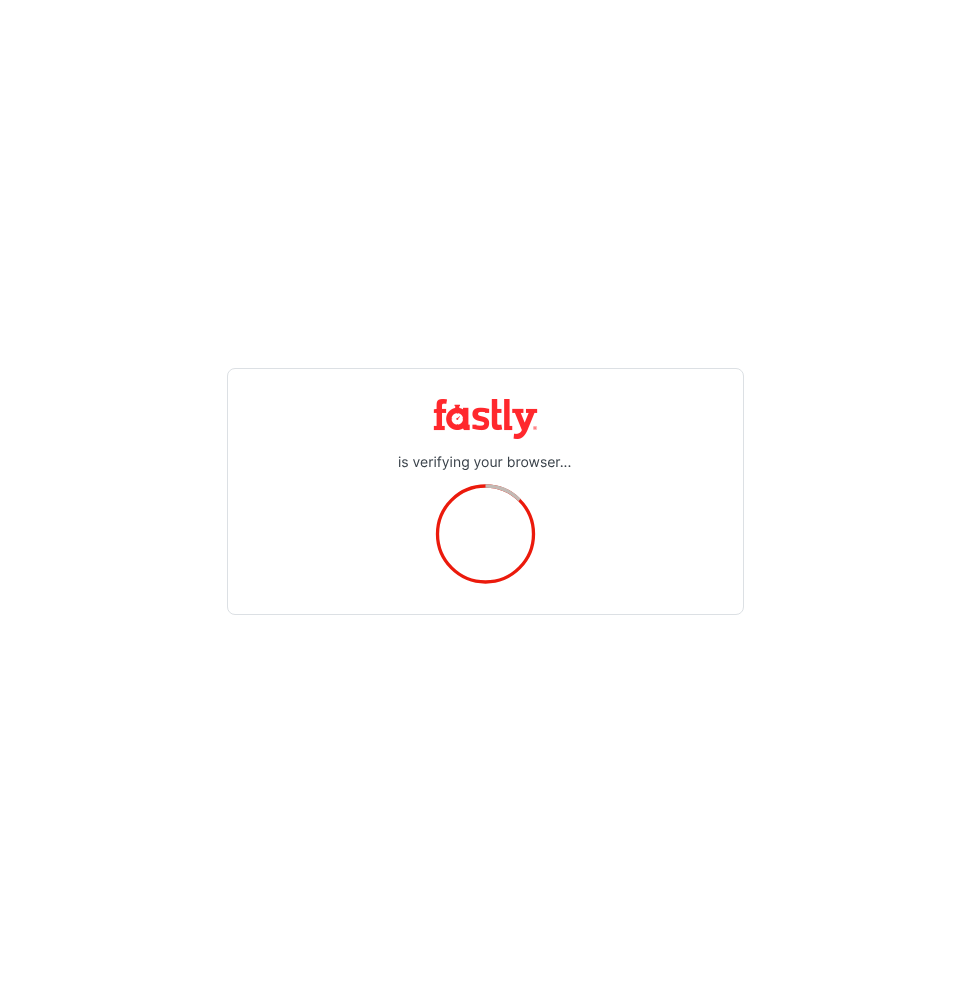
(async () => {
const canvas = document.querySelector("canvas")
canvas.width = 970
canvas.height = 983
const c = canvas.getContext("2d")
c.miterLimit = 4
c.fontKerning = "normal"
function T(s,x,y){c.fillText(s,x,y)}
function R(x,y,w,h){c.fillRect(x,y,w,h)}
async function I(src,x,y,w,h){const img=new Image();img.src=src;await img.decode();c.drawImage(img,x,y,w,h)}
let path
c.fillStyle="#fff"
R(0,0,970,983)
c.beginPath()
c.roundRect(227.5,368.5,516,246,7.5)
c.strokeStyle="#dce0e4"
c.stroke()
await I("1.png",433,399,105,40)
c.font="14px Inter"
c.fillStyle="#3a424a"
T("is verifying your browser...",398,467)
path = new Path2D("M437.5 534c0-26.5 21.5-48 48-48c26.5 0 48 21.5 48 48c0 26.5-21.5 48-48 48c-26.5 0-48-21.5-48-48z")
c.strokeStyle="#eb1a0c"
c.lineWidth=3.3
c.stroke(path)
path = new Path2D("M519.5 500c-9-9-21.5-14-34-14")
c.strokeStyle="#c2bab5"
c.stroke(path)
})()
